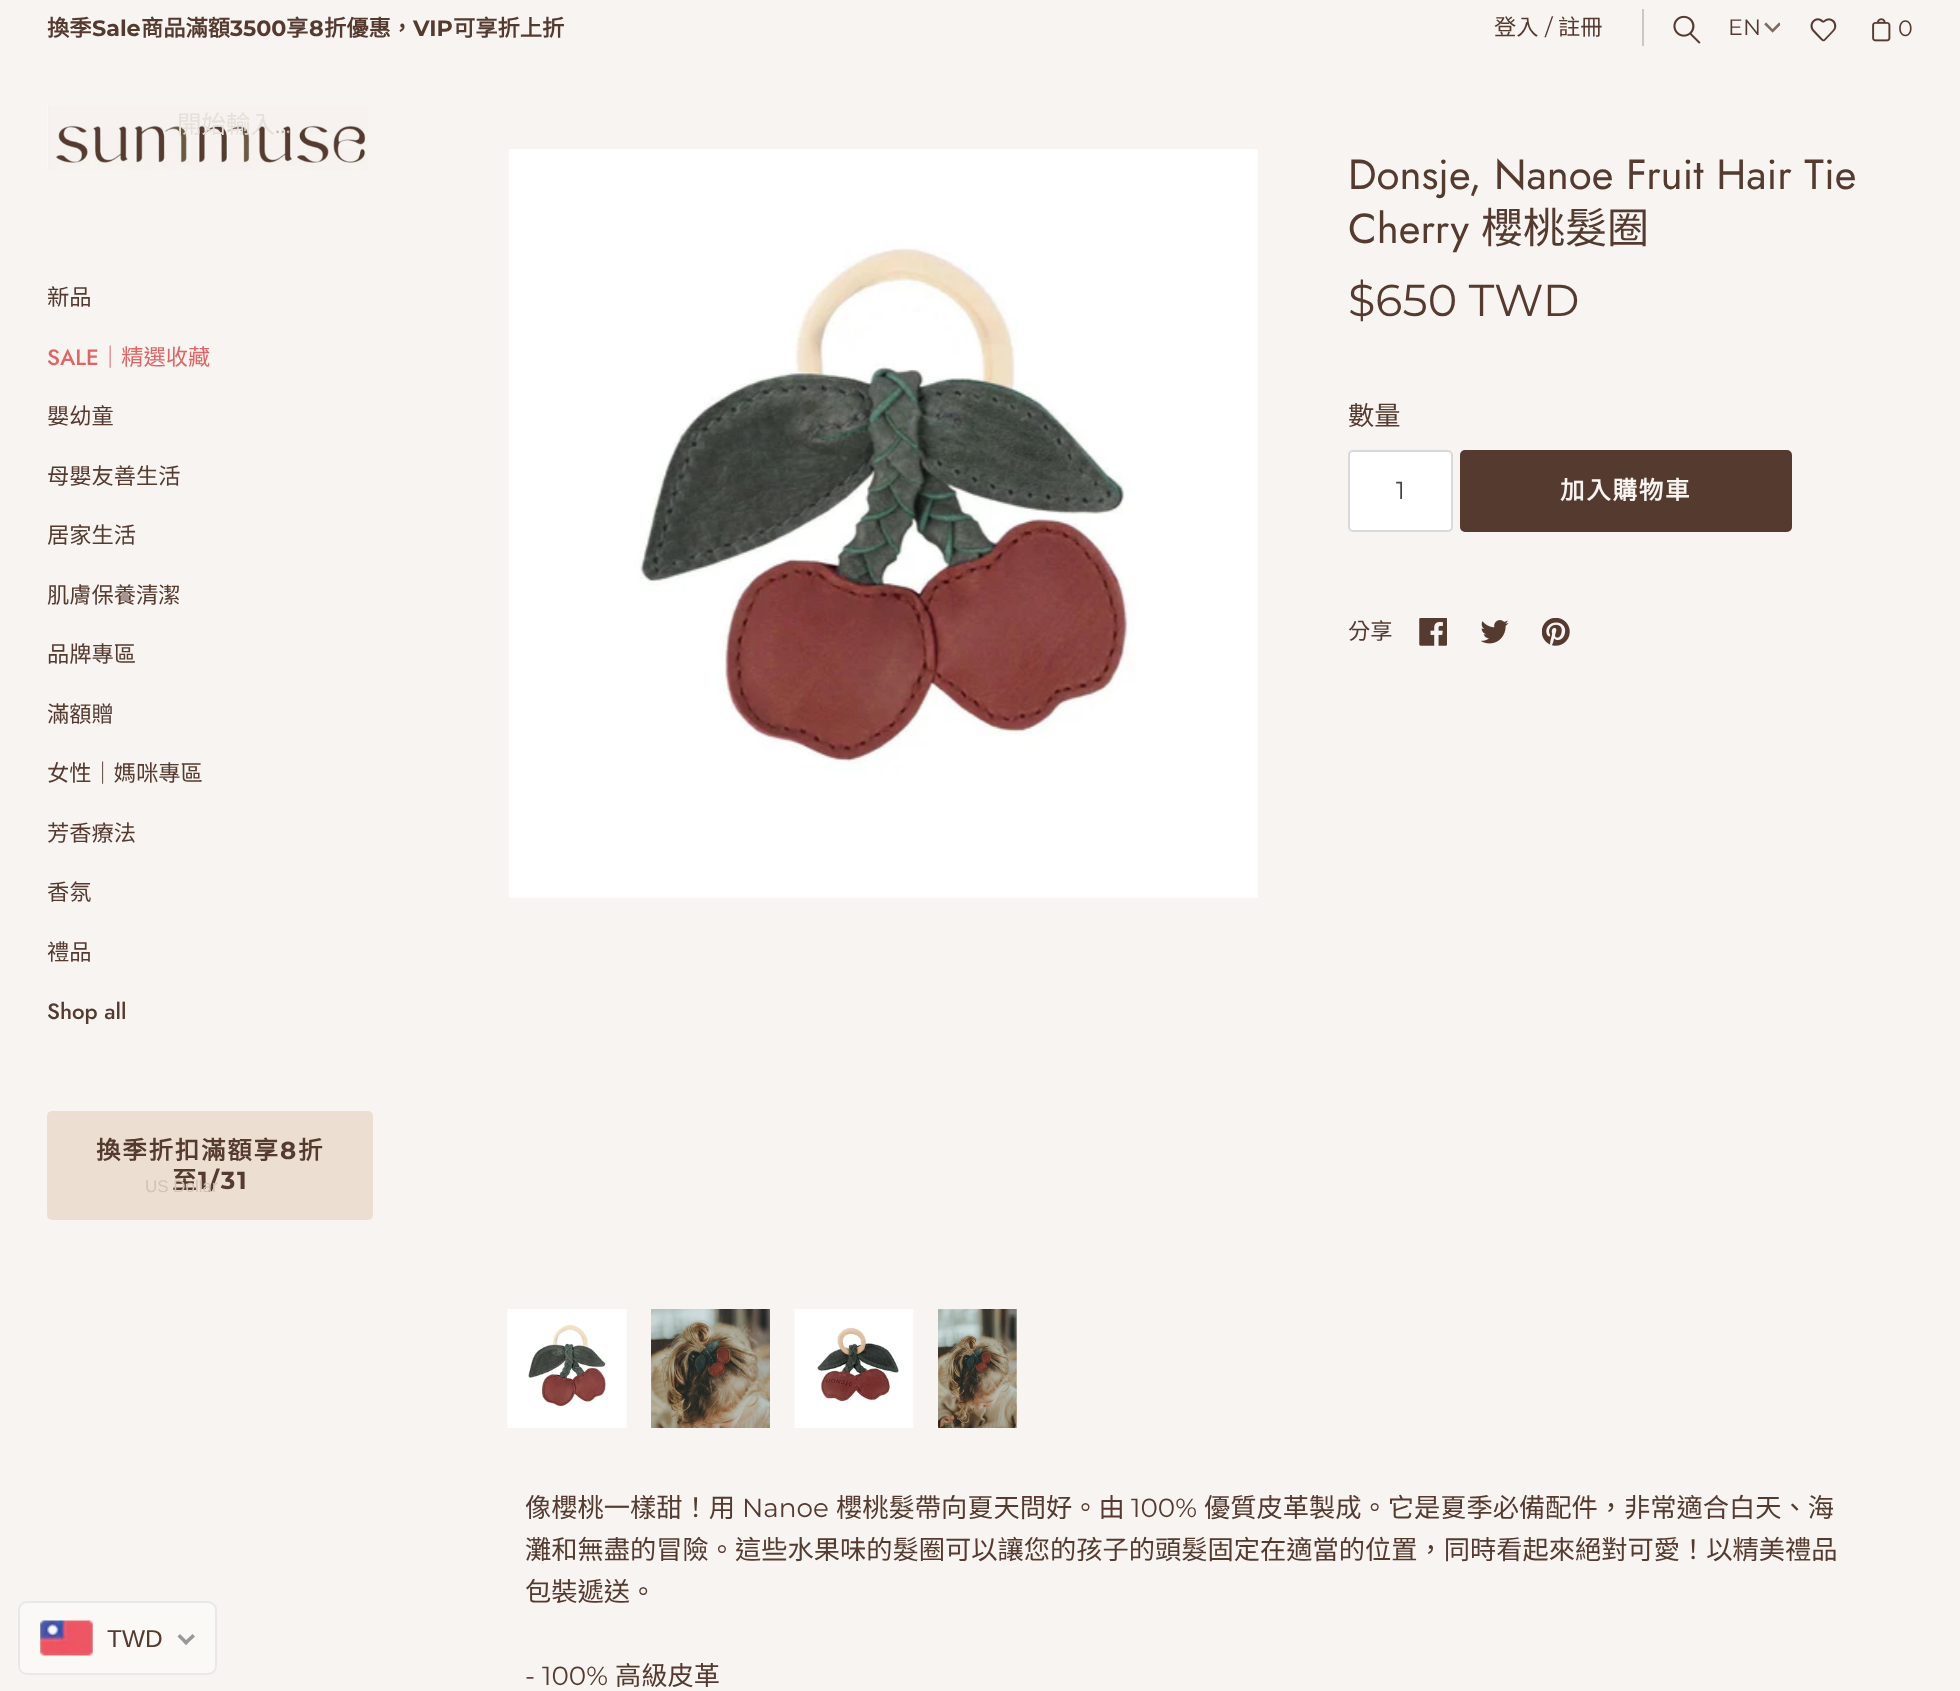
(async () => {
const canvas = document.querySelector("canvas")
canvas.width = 1960
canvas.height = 1691
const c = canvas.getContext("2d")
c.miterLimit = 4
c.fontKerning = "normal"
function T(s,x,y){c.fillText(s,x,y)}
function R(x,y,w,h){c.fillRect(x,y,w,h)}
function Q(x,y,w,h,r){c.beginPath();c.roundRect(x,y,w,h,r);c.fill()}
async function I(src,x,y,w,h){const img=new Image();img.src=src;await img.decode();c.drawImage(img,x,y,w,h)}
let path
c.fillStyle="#f7f4f2"
R(0,0,1960,1691)
c.font="bold 22.25px Noto Sans CJK TC"
c.fillStyle="#553a2f"
T("換季",47,36)
c.font="bold 22.25px Montserrat"
T("Sale",92,36)
c.font="bold 22.25px Noto Sans CJK TC"
T("商品滿額",141,36)
c.font="bold 22.25px Montserrat"
T("3500",230,36)
c.font="bold 22.25px Noto Sans CJK TC"
T("享",286,36)
c.font="bold 22.25px Montserrat"
T("8",309,36)
c.font="bold 22.25px Noto Sans CJK TC"
T("折優惠，",324,36)
c.font="bold 22.25px Montserrat"
T("VIP",413,36)
c.font="bold 22.25px Noto Sans CJK TC"
T("可享折上折",453,36)
c.font="22.25px Noto Sans CJK TC"
T("登入",1494,35)
c.font="22.25px Montserrat"
T("/",1545,35)
c.font="22.25px Noto Sans CJK TC"
T("註冊",1558,35)
c.fillStyle="#cfc6c1"
R(1642,9,2,37)
await I("1.png",1673,15,28,29)
c.font="22.25px Montserrat"
c.fillStyle="#553a2f"
T("EN",1728,35)
await I("2.png",1764,22,16,11)
await I("3.png",1810,18,27,24)
await I("4.png",1872,18,19,24)
T("0",1898,36)
await I("5.png",47,105,321,65)
c.font="24.5px Noto Sans CJK TC"
c.fillStyle="#e6e0db"
T("開始輸入",177,133)
c.font="24.5px Montserrat"
c.fillStyle="#c1b5af"
T("...",275,133)
c.font="22.25px Noto Sans CJK TC"
c.fillStyle="#553a2f"
T("新品",47,305)
c.font="500 22.25px Jost"
c.fillStyle="#d66"
T("SALE",47,365)
c.font="22.25px Noto Sans CJK TC"
T("｜精選收藏",99,365)
c.fillStyle="#553a2f"
T("嬰幼童",47,424)
T("母嬰友善生活",47,484)
T("居家生活",47,543)
T("肌膚保養清潔",47,603)
T("品牌專區",47,662)
T("滿額贈",47,722)
T("女性｜媽咪專區",47,781)
T("芳香療法",47,841)
T("香氛",47,900)
T("禮品",47,960)
c.font="500 22.25px Jost"
T("Shop all",47,1019)
c.fillStyle="#edded2"
Q(47,1111,326,109,5)
c.letterSpacing="1.75px"
c.font="bold 24.5px Noto Sans CJK TC"
c.fillStyle="#553a2f"
T("換季折扣滿額享",96,1159)
c.font="bold 24.5px Montserrat"
T("8",280,1159)
c.font="bold 24.5px Noto Sans CJK TC"
T("折",298,1159)
T("至",172,1189)
c.font="bold 24.5px Montserrat"
T("1/31",198,1189)
await I("6.png",509,149,749,749)
await I("7.png",507,1309,120,119)
await I("8.png",651,1309,119,119)
await I("9.png",794,1309,120,119)
await I("10.png",938,1309,79,119)
c.letterSpacing="0px"
c.font="42px Jost"
T("Donsje, Nanoe Fruit Hair Tie",1348,189)
T("Cherry",1348,243)
c.font="42px Noto Sans CJK TC"
T("櫻桃髮圈",1481,243)
c.font="44.5px Montserrat"
T("$650 TWD",1348,316)
c.font="26.25px Noto Sans CJK TC"
T("數量",1348,425)
c.fillStyle="#fff"
Q(1348,450,105,82,5)
c.beginPath()
c.roundRect(1349,451,103,80,4)
c.strokeStyle="#00000026"
c.lineWidth=2
c.stroke()
c.font="24.5px Montserrat"
c.fillStyle="#444"
T("1",1396,499)
c.fillStyle="#553a2f"
c.beginPath()
c.roundRect(1461,451,330,80,4)
c.fill()
c.strokeStyle="#553a2f"
c.stroke()
c.letterSpacing="1.75px"
c.font="bold 24.5px Noto Sans CJK TC"
c.fillStyle="#f7f4f2"
T("加入購物車",1560,499)
c.letterSpacing="0px"
c.font="22.25px Noto Sans CJK TC"
c.fillStyle="#553a2f"
T("分享",1348,639)
await I("11.png",1419,618,28,28)
await I("12.png",1481,620,28,24)
await I("13.png",1542,618,28,28)
c.font="26.25px Noto Sans CJK TC"
T("像櫻桃一樣甜！用",525,1517)
c.font="26.25px Montserrat"
T("Nanoe",742,1517)
c.font="26.25px Noto Sans CJK TC"
T("櫻桃髮帶向夏天問好。由",836,1517)
c.font="26.25px Montserrat"
T("100%",1131,1517)
c.font="26.25px Noto Sans CJK TC"
T("優質皮革製成。它是夏季必備配件，非常適合白天、海",1204,1517)
T("灘和無盡的冒險。這些水果味的髮圈可以讓您的孩子的頭髮固定在適當的位置，同時看起來絕對可愛！以精美禮品",525,1559)
T("包裝遞送。",525,1601)
c.font="26.25px Montserrat"
T("- 100%",525,1685)
c.font="26.25px Noto Sans CJK TC"
T("高級皮革",615,1685)
c.fillStyle="#faf9f5"
c.beginPath()
c.roundRect(19,1602,197,72,8)
c.fill()
c.strokeStyle="#e8e8e8"
c.stroke()
c.font="17px Liberation Sans"
c.fillStyle="#d3c2b6"
T("US Dollar",145,1192)
await I("14.png",40,1620,53,36)
c.font="24.5px Liberation Sans"
c.fillStyle="#553a2f"
T("TWD",107,1647)
c.fillStyle="#999"
path = new Path2D("M192.5 1634l2.5 2.5l-9 8.5l-2.5-2.5z")
c.fill(path)
path = new Path2D("M180 1634l8.5 8.5l-2.5 2.5l-8.5-8.5z")
c.fill(path)
})()
